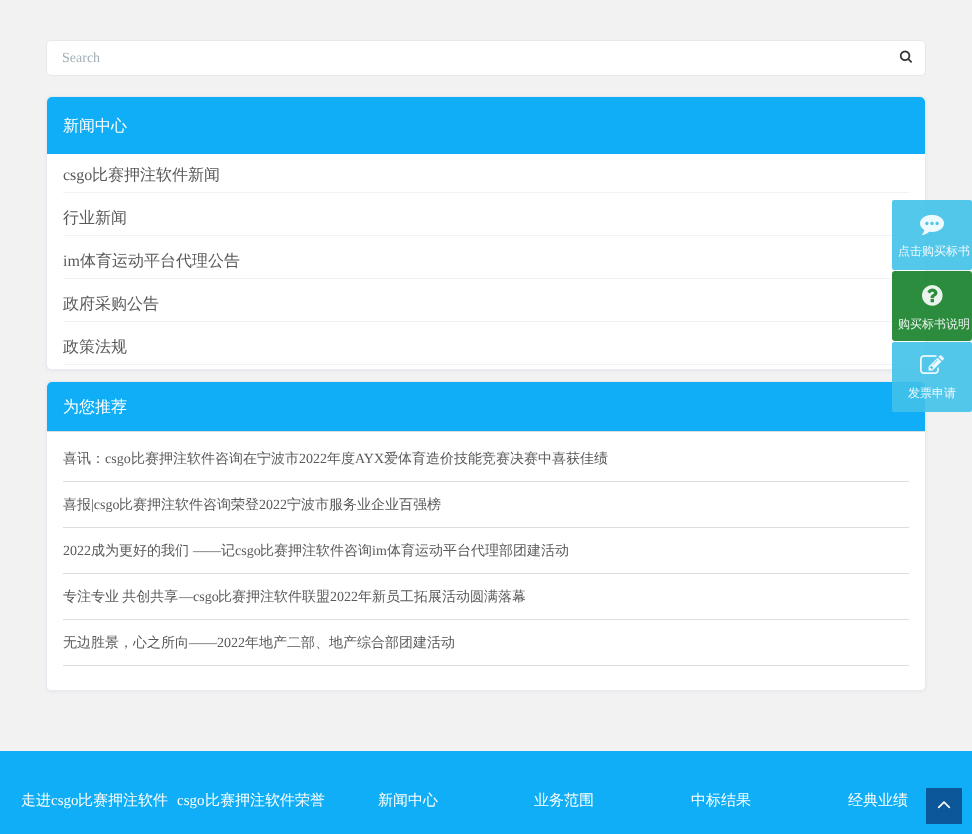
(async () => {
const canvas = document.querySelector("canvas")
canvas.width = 972
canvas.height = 834
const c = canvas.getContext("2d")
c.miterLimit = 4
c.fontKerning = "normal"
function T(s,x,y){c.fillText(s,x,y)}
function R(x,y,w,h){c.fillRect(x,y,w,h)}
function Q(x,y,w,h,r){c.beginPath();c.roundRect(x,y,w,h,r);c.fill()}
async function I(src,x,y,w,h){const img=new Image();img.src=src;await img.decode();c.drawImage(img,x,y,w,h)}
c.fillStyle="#f2f2f2"
R(0,0,972,834)
c.fillStyle="#fff"
c.beginPath()
c.roundRect(46.5,40.5,879,35,4.5)
c.fill()
c.strokeStyle="#e4eaec"
c.stroke()
c.font="14px Liberation Serif"
c.fillStyle="#a3afb7"
T("Search",62,62)
await I("1.png",899,50,14,13)
c.fillStyle="#0025370d"
c.filter="blur(1.5px)"
c.beginPath()
c.roundRect(46,97,880,274,5)
c.fill()
c.filter="none"
c.fillStyle="#fff"
c.beginPath()
c.roundRect(46.5,96.5,879,273,4.5)
c.fill()
c.strokeStyle="#e7eaf1"
c.stroke()
c.fillStyle="#10aef7"
c.beginPath()
c.roundRect(47,97,878,57,[5,5,0,0])
c.fill()
c.font="500 16px WenQuanYi Zen Hei"
c.fillStyle="#fff"
T("新闻中心",63,131)
c.fillStyle="#f0f2f7"
R(63,192,846,1)
c.font="16px Liberation Serif"
c.fillStyle="#595959"
T("csgo",63,180)
c.font="500 16px WenQuanYi Zen Hei"
T("比赛押注软件新闻",92,180)
c.fillStyle="#f0f2f7"
R(63,235,846,1)
c.fillStyle="#595959"
T("行业新闻",63,223)
c.fillStyle="#f0f2f7"
R(63,278,846,1)
c.font="16px Liberation Serif"
c.fillStyle="#595959"
T("im",63,266)
c.font="500 16px WenQuanYi Zen Hei"
T("体育运动平台代理公告",80,266)
c.fillStyle="#f0f2f7"
R(63,321,846,1)
c.fillStyle="#595959"
T("政府采购公告",63,309)
c.fillStyle="#f0f2f7"
R(63,364,846,1)
c.fillStyle="#595959"
T("政策法规",63,352)
c.fillStyle="#0025370d"
c.filter="blur(1.5px)"
c.beginPath()
c.roundRect(46,382,880,310,5)
c.fill()
c.filter="none"
c.fillStyle="#fff"
c.beginPath()
c.roundRect(46.5,381.5,879,309,4.5)
c.fill()
c.stroke()
c.fillStyle="#10aef7"
c.beginPath()
c.roundRect(47,382,878,50,[5,5,0,0])
c.fill()
c.fillStyle="#ddd"
R(47,431,878,1)
c.fillStyle="#fff"
T("为您推荐",63,412)
c.fillStyle="#ddd"
R(63,481,846,1)
c.font="500 14px WenQuanYi Zen Hei"
c.fillStyle="#595959"
T("喜讯：",63,463)
c.font="14px Liberation Serif"
T("csgo",105,463)
c.font="500 14px WenQuanYi Zen Hei"
T("比赛押注软件咨询在宁波市",131,463)
c.font="14px Liberation Serif"
T("2022",299,463)
c.font="500 14px WenQuanYi Zen Hei"
T("年度",327,463)
c.font="14px Liberation Serif"
T("AYX",355,463)
c.font="500 14px WenQuanYi Zen Hei"
T("爱体育造价技能竞赛决赛中喜获佳绩",384,463)
c.fillStyle="#ddd"
R(63,527,846,1)
c.fillStyle="#595959"
T("喜报",63,509)
c.font="14px Liberation Serif"
T("|csgo",91,509)
c.font="500 14px WenQuanYi Zen Hei"
T("比赛押注软件咨询荣登",119,509)
c.font="14px Liberation Serif"
T("2022",259,509)
c.font="500 14px WenQuanYi Zen Hei"
T("宁波市服务业企业百强榜",287,509)
c.fillStyle="#ddd"
R(63,573,846,1)
c.font="14px Liberation Serif"
c.fillStyle="#595959"
T("2022",63,555)
c.font="500 14px WenQuanYi Zen Hei"
T("成为更好的我们",91,555)
c.font="14px Liberation Serif"
T("——",193,555)
c.font="500 14px WenQuanYi Zen Hei"
T("记",221,555)
c.font="14px Liberation Serif"
T("csgo",235,555)
c.font="500 14px WenQuanYi Zen Hei"
T("比赛押注软件咨询",260,555)
c.font="14px Liberation Serif"
T("im",372,555)
c.font="500 14px WenQuanYi Zen Hei"
T("体育运动平台代理部团建活动",387,555)
c.fillStyle="#ddd"
R(63,619,846,1)
c.wordSpacing="-1px"
c.fillStyle="#595959"
T("专注专业 共创共享",63,601)
c.wordSpacing="0px"
c.font="14px Liberation Serif"
T("—csgo",179,601)
c.font="500 14px WenQuanYi Zen Hei"
T("比赛押注软件联盟",218,601)
c.font="14px Liberation Serif"
T("2022",330,601)
c.font="500 14px WenQuanYi Zen Hei"
T("年新员工拓展活动圆满落幕",358,601)
c.fillStyle="#ddd"
R(63,665,846,1)
c.fillStyle="#595959"
T("无边胜景，心之所向",63,647)
c.font="14px Liberation Serif"
T("——2022",189,647)
c.font="500 14px WenQuanYi Zen Hei"
T("年地产二部、地产综合部团建活动",245,647)
c.fillStyle="#41c2e9e6"
Q(892,200,80,70,2)
await I("2.png",920,214,24,21)
c.font="500 12px WenQuanYi Zen Hei"
c.fillStyle="#eef9fd"
T("点击购买标书",898,255)
c.fillStyle="#158129e6"
Q(892,271,80,70,3)
await I("3.png",922,285,21,21)
c.fillStyle="#eaf4ec"
T("购买标书说明",898,328)
c.fillStyle="#41c2e9e6"
Q(892,342,80,70,2)
await I("4.png",920,355,24,19)
c.fillStyle="#eef9fd"
T("发票申请",908,397)
c.fillStyle="#10aef7"
R(0,751,972,83)
c.font="500 15px WenQuanYi Zen Hei"
c.fillStyle="#fff"
T("走进",21,805)
c.font="15px Liberation Serif"
T("csgo",51,805)
c.font="500 15px WenQuanYi Zen Hei"
T("比赛押注软件",78,805)
c.font="15px Liberation Serif"
T("csgo",177,805)
c.font="500 15px WenQuanYi Zen Hei"
T("比赛押注软件荣誉",205,805)
T("新闻中心",378,805)
T("业务范围",534,805)
T("中标结果",691,805)
T("经典业绩",848,805)
c.fillStyle="#0c5799"
R(926,788,36,36)
await I("5.png",937,801,14,8)
})()
